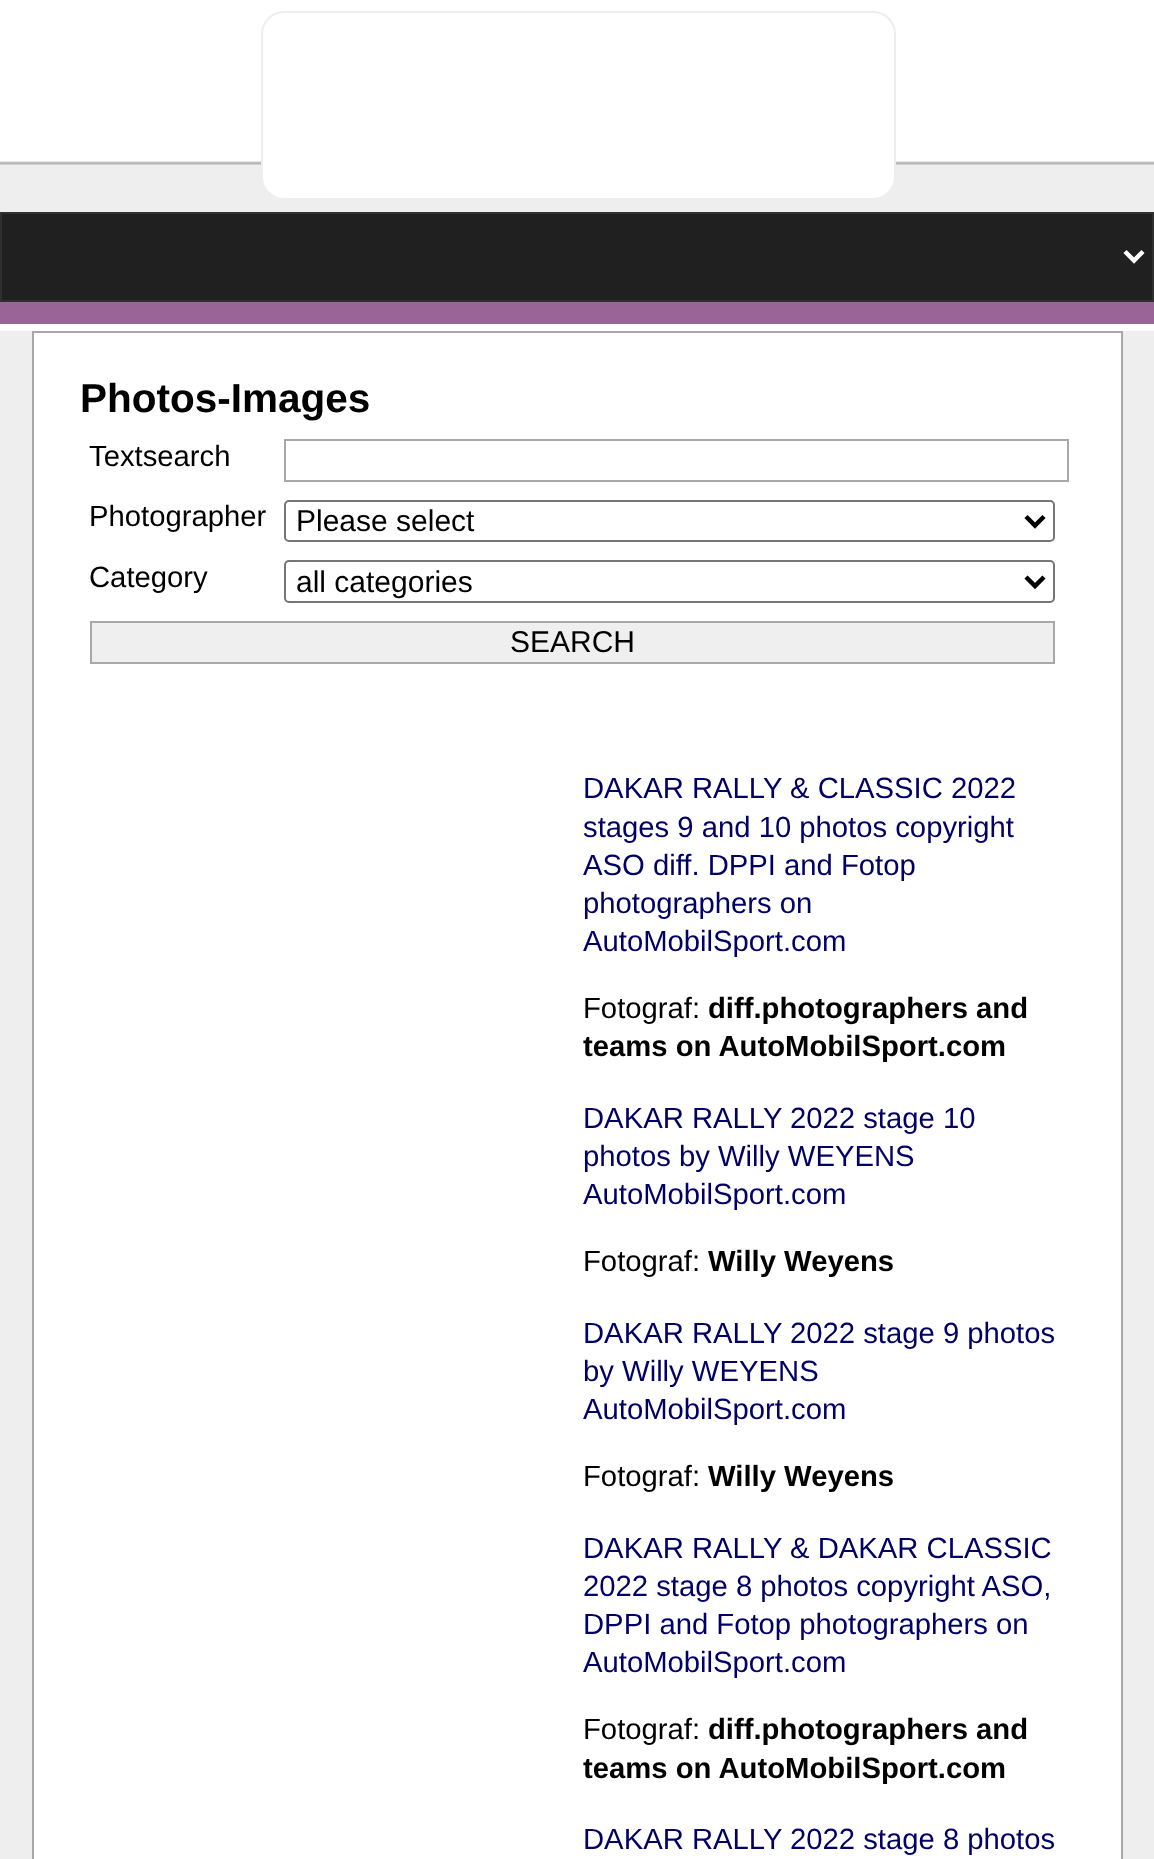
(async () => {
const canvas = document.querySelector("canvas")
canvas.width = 1154
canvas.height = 1859
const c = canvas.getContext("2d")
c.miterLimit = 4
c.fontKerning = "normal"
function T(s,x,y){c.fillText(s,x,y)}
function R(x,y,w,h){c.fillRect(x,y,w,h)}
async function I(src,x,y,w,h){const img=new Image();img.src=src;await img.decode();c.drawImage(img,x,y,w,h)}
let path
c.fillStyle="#fff"
R(0,0,1154,1859)
await I("1.png",0,161,1154,163)
c.beginPath()
c.roundRect(262,12,633,187,22)
c.fill()
c.strokeStyle="#eee"
c.lineWidth=2
c.stroke()
c.fillStyle="#202020"
c.beginPath()
c.rect(1,213,1152,88)
c.fill()
c.strokeStyle="#303030"
c.stroke()
path = new Path2D("M1125 251.5l9 9l9-9")
c.strokeStyle="#fff"
c.lineWidth=4.5
c.stroke(path)
c.fillStyle="#eee"
R(0,331,1154,1528)
c.fillStyle="#fff"
c.beginPath()
c.rect(33,332,1089,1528)
c.fill()
c.strokeStyle="#a8a8a8"
c.lineWidth=2
c.stroke()
c.font="bold 40.5px Liberation Sans"
c.fillStyle="#000"
T("Photos-Images",80,412)
c.font="29.25px Liberation Sans"
T("Textsearch",89,466)
c.strokeRect(285,440,783,41)
T("Photographer",89,526)
c.beginPath()
c.roundRect(285,501,769,40,4)
c.strokeStyle="#767676"
c.stroke()
path = new Path2D("M1026 516.5l9 9l9-9")
c.strokeStyle="#000"
c.lineWidth=4.5
c.stroke(path)
c.font="30px Liberation Sans"
T("Please select",296,531)
c.font="29.25px Liberation Sans"
T("Category",89,587)
c.beginPath()
c.roundRect(285,561,769,41,4)
c.strokeStyle="#767676"
c.lineWidth=2
c.stroke()
path = new Path2D("M1026 577l9 9l9-9")
c.strokeStyle="#000"
c.lineWidth=4.5
c.stroke(path)
c.font="30px Liberation Sans"
T("all categories",296,592)
c.fillStyle="#efefef"
c.beginPath()
c.rect(91,622,963,41)
c.fill()
c.strokeStyle="#a8a8a8"
c.lineWidth=2
c.stroke()
c.fillStyle="#000"
T("SEARCH",510,652)
c.font="29.25px Liberation Sans"
c.fillStyle="#006"
T("DAKAR RALLY & CLASSIC 2022",583,798)
T("stages 9 and 10 photos copyright",583,837)
T("ASO diff. DPPI and Fotop",583,875)
T("photographers on",583,913)
T("AutoMobilSport.com",583,951)
c.fillStyle="#000"
T("Fotograf:",583,1018)
c.font="bold 29.25px Liberation Sans"
T("diff.photographers and",708,1018)
T("teams on AutoMobilSport.com",583,1056)
c.font="29.25px Liberation Sans"
c.fillStyle="#006"
T("DAKAR RALLY 2022 stage 10",583,1128)
T("photos by Willy WEYENS",583,1166)
T("AutoMobilSport.com",583,1204)
c.fillStyle="#000"
T("Fotograf:",583,1271)
c.font="bold 29.25px Liberation Sans"
T("Willy Weyens",708,1271)
c.font="29.25px Liberation Sans"
c.fillStyle="#006"
T("DAKAR RALLY 2022 stage 9 photos",583,1343)
T("by Willy WEYENS",583,1381)
T("AutoMobilSport.com",583,1419)
c.fillStyle="#000"
T("Fotograf:",583,1486)
c.font="bold 29.25px Liberation Sans"
T("Willy Weyens",708,1486)
c.font="29.25px Liberation Sans"
c.fillStyle="#006"
T("DAKAR RALLY & DAKAR CLASSIC",583,1558)
T("2022 stage 8 photos copyright ASO,",583,1596)
T("DPPI and Fotop photographers on",583,1634)
T("AutoMobilSport.com",583,1672)
c.fillStyle="#000"
T("Fotograf:",583,1739)
c.font="bold 29.25px Liberation Sans"
T("diff.photographers and",708,1739)
T("teams on AutoMobilSport.com",583,1778)
c.font="29.25px Liberation Sans"
c.fillStyle="#006"
T("DAKAR RALLY 2022 stage 8 photos",583,1849)
})()
